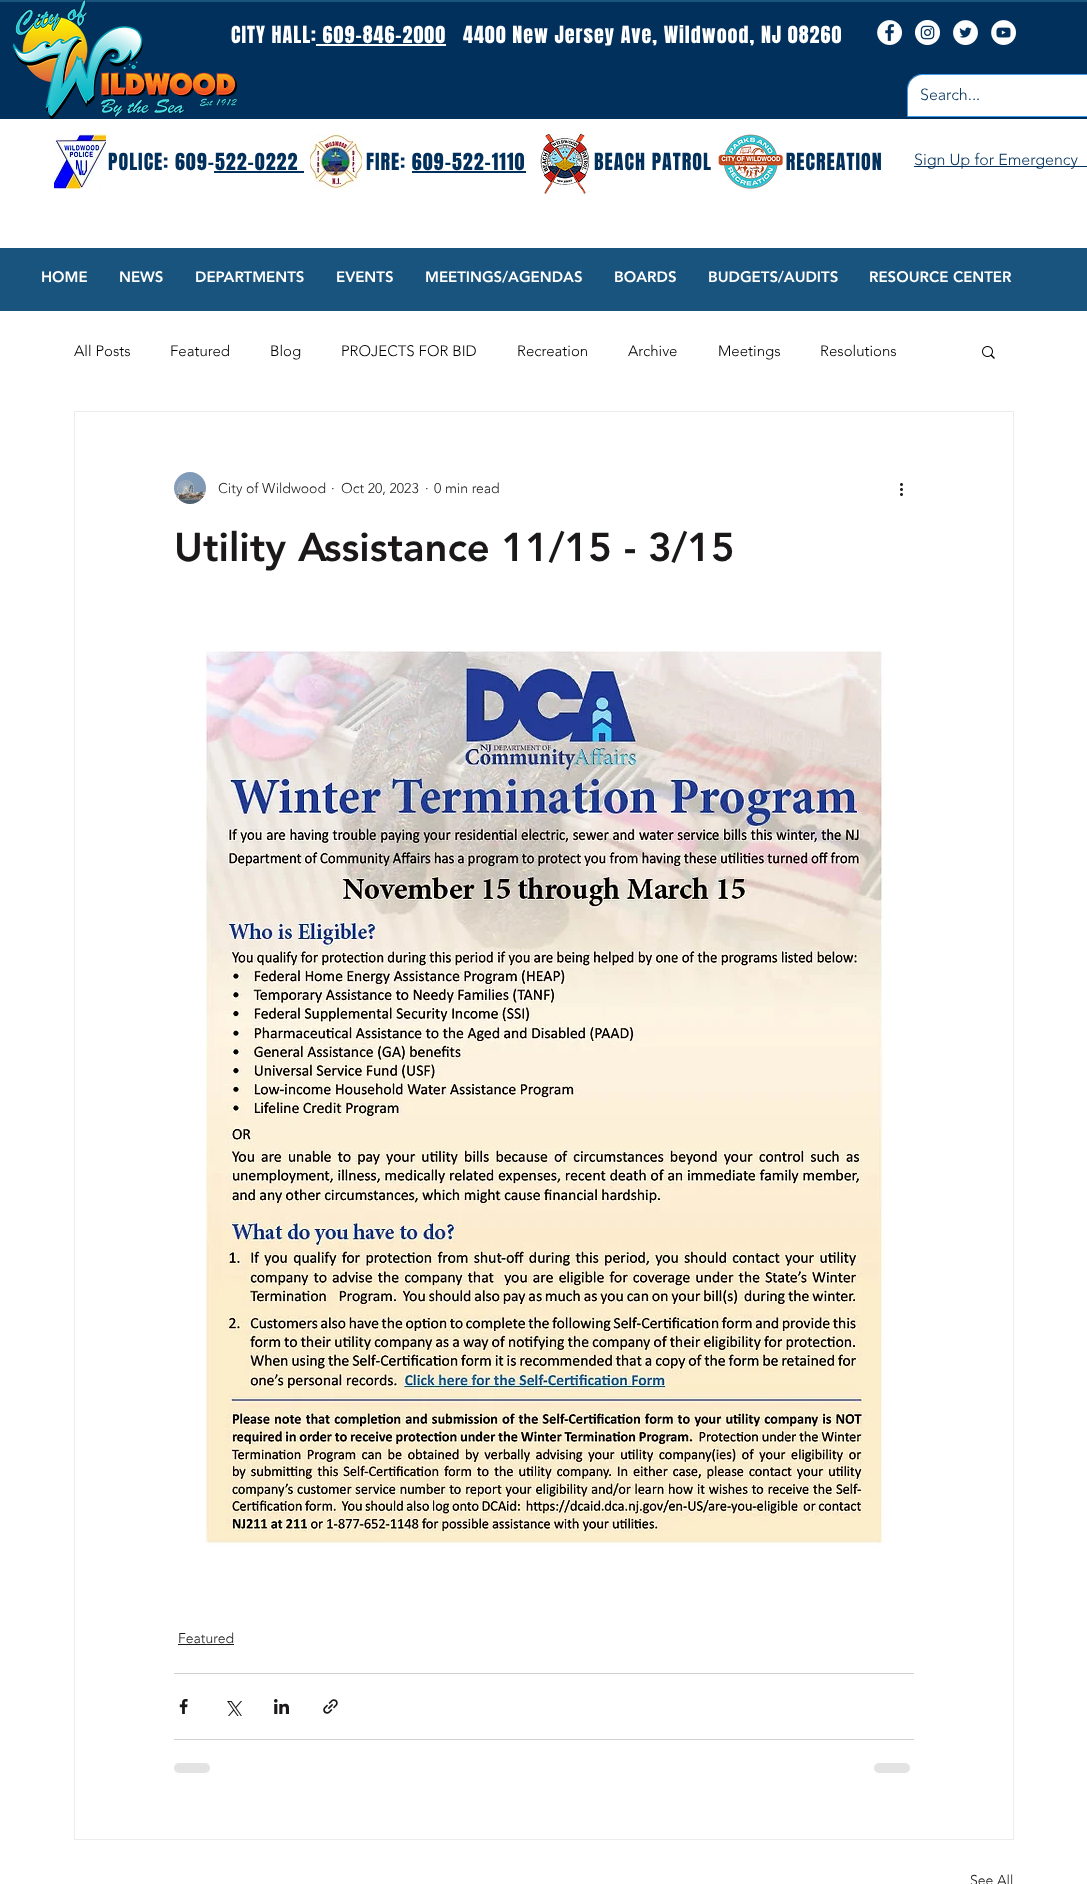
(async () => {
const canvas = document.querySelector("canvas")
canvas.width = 1087
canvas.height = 1884
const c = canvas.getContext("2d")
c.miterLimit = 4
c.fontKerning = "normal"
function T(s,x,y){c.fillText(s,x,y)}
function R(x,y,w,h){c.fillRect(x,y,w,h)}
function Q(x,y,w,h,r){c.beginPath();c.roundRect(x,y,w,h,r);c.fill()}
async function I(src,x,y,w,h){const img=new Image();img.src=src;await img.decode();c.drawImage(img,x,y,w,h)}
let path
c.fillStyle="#fff"
R(0,0,1087,1884)
c.fillStyle="#19547e"
R(0,0,1087,311)
c.fillStyle="#00305b"
R(0,2,1087,117)
c.letterSpacing="1px"
c.font="20px Anton"
c.fillStyle="#fff"
T("CITY HALL: 609-846-2000",231,43)
await I("1.png",13,0,224,119)
R(316,44,130,2)
T("4400 New Jersey Ave, Wildwood, NJ 08260",463,43)
await I("2.png",877,20,25,25)
await I("3.png",915,20,25,25)
await I("4.png",953,20,25,25)
await I("5.png",991,20,25,25)
path = new Path2D("M922 74.5h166c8 0 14.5 6.5 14.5 14.5v27.5h-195v-27.5c0-8 6.5-14.5 14.5-14.5z")
c.strokeStyle="#3d9be9"
c.stroke(path)
path = new Path2D("M922 75h165c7.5 0 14 6.5 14 14v27h-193v-27c0-7.5 6.5-14 14-14z")
c.fill(path)
c.letterSpacing="0px"
c.font="300 16px 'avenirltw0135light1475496'"
c.fillStyle="#00305b"
T("Search...",920,100)
c.fillStyle="#fff"
R(0,119,1087,129)
await I("6.png",540,133,50,61)
c.letterSpacing="1px"
c.font="20px Anton"
c.fillStyle="#00305b"
T("BEACH PATROL             RECREATION",594,170)
await I("7.png",718,134,65,55)
await I("8.png",54,134,52,55)
await I("9.png",310,134,52,55)
T("POLICE: 609-522-0222",108,170)
R(214,171,90,2)
T("FIRE: 609-522-1110",366,170)
R(412,171,114,2)
R(914,166,173,1)
c.letterSpacing="0px"
c.font="300 16px 'avenirltw0135light1475496'"
T("Sign Up for Emergency",914,165)
c.font="900 15px 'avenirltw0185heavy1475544'"
c.fillStyle="#fff"
T("HOME",41,282)
T("NEWS",119,282)
T("DEPARTMENTS",195,282)
T("EVENTS",336,282)
T("MEETINGS/AGENDAS",425,282)
T("BOARDS",614,282)
T("BUDGETS/AUDITS",708,282)
T("RESOURCE CENTER",869,282)
c.font="300 15px 'avenirltw0135light1475496'"
c.fillStyle="#000"
T("All Posts",74,356)
T("Featured",170,356)
T("Blog",270,356)
T("PROJECTS FOR BID",341,356)
T("Recreation",517,356)
T("Archive",628,356)
T("Meetings",718,356)
T("Resolutions",820,356)
await I("10.png",982,346,13,13)
c.strokeStyle="#edebeb"
c.strokeRect(74.5,411.5,939,1428)
await I("11.png",174,472,32,32)
c.font="300 14px 'avenirltw0135light1475496'"
c.fillStyle="#1a1818"
T("City of Wildwood",218,493)
T("·",331,493)
T("Oct 20, 2023",341,493)
T("·",425,493)
T("0 min read",434,493)
await I("12.png",900,483,3,13)
c.font="900 40px 'avenirltw0185heavy1475544'"
T("Utility Assistance 11/15 - 3/15",174,561)
await I("13.png",205,649,681,898)
c.font="300 14px 'avenirltw0135light1475496'"
T("Featured",178,1643)
R(178,1644,56,1)
c.fillStyle="#d1d1d1"
R(174,1673,740,1)
await I("14.png",179,1699,9,15)
await I("15.png",227,1701,15,15)
await I("16.png",274,1699,15,15)
await I("17.png",323,1699,15,15)
R(174,1739,740,1)
c.fillStyle="#e4e3e3"
Q(174,1763,36,10,5)
Q(874,1763,36,10,5)
c.fillStyle="#1a1818"
T("See All",970,1885)
})()
